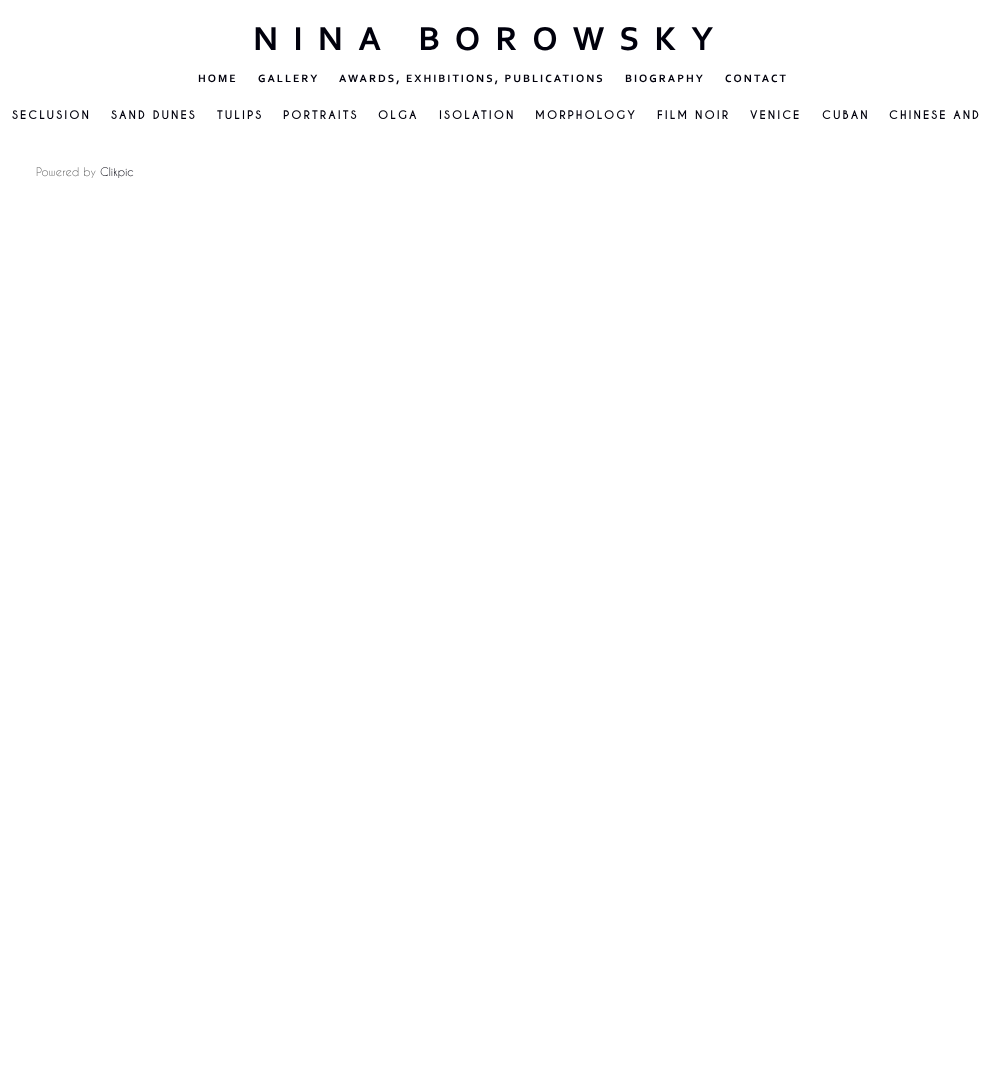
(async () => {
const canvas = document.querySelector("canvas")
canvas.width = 982
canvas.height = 1069
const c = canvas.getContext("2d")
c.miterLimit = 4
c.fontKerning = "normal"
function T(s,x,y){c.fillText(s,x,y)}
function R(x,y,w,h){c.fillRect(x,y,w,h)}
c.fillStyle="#fff"
R(0,0,982,1069)
c.letterSpacing="15px"
c.font="bold 34.75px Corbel"
c.fillStyle="#00000c"
T("NINA BOROWSKY",253,50)
c.letterSpacing="2px"
c.font="bold 11.2px Corbel"
T("HOME",198,82)
T("GALLERY",258,82)
T("AWARDS, EXHIBITIONS, PUBLICATIONS",339,82)
T("BIOGRAPHY",625,82)
T("CONTACT",725,82)
c.font="bold 11.2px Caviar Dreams"
T("SECLUSION",12,119)
T("SAND DUNES",111,119)
T("TULIPS",217,119)
T("PORTRAITS",283,119)
T("OLGA",378,119)
T("ISOLATION",439,119)
T("MORPHOLOGY",535,119)
T("FILM NOIR",657,119)
T("VENICE",750,119)
T("CUBAN",822,119)
T("CHINESE AND",889,119)
c.letterSpacing="0px"
c.font="11.2px Caviar Dreams"
c.fillStyle="#666"
T("Powered by",36,176)
c.fillStyle="#00000c"
T("Clikpic",100,176)
})()
